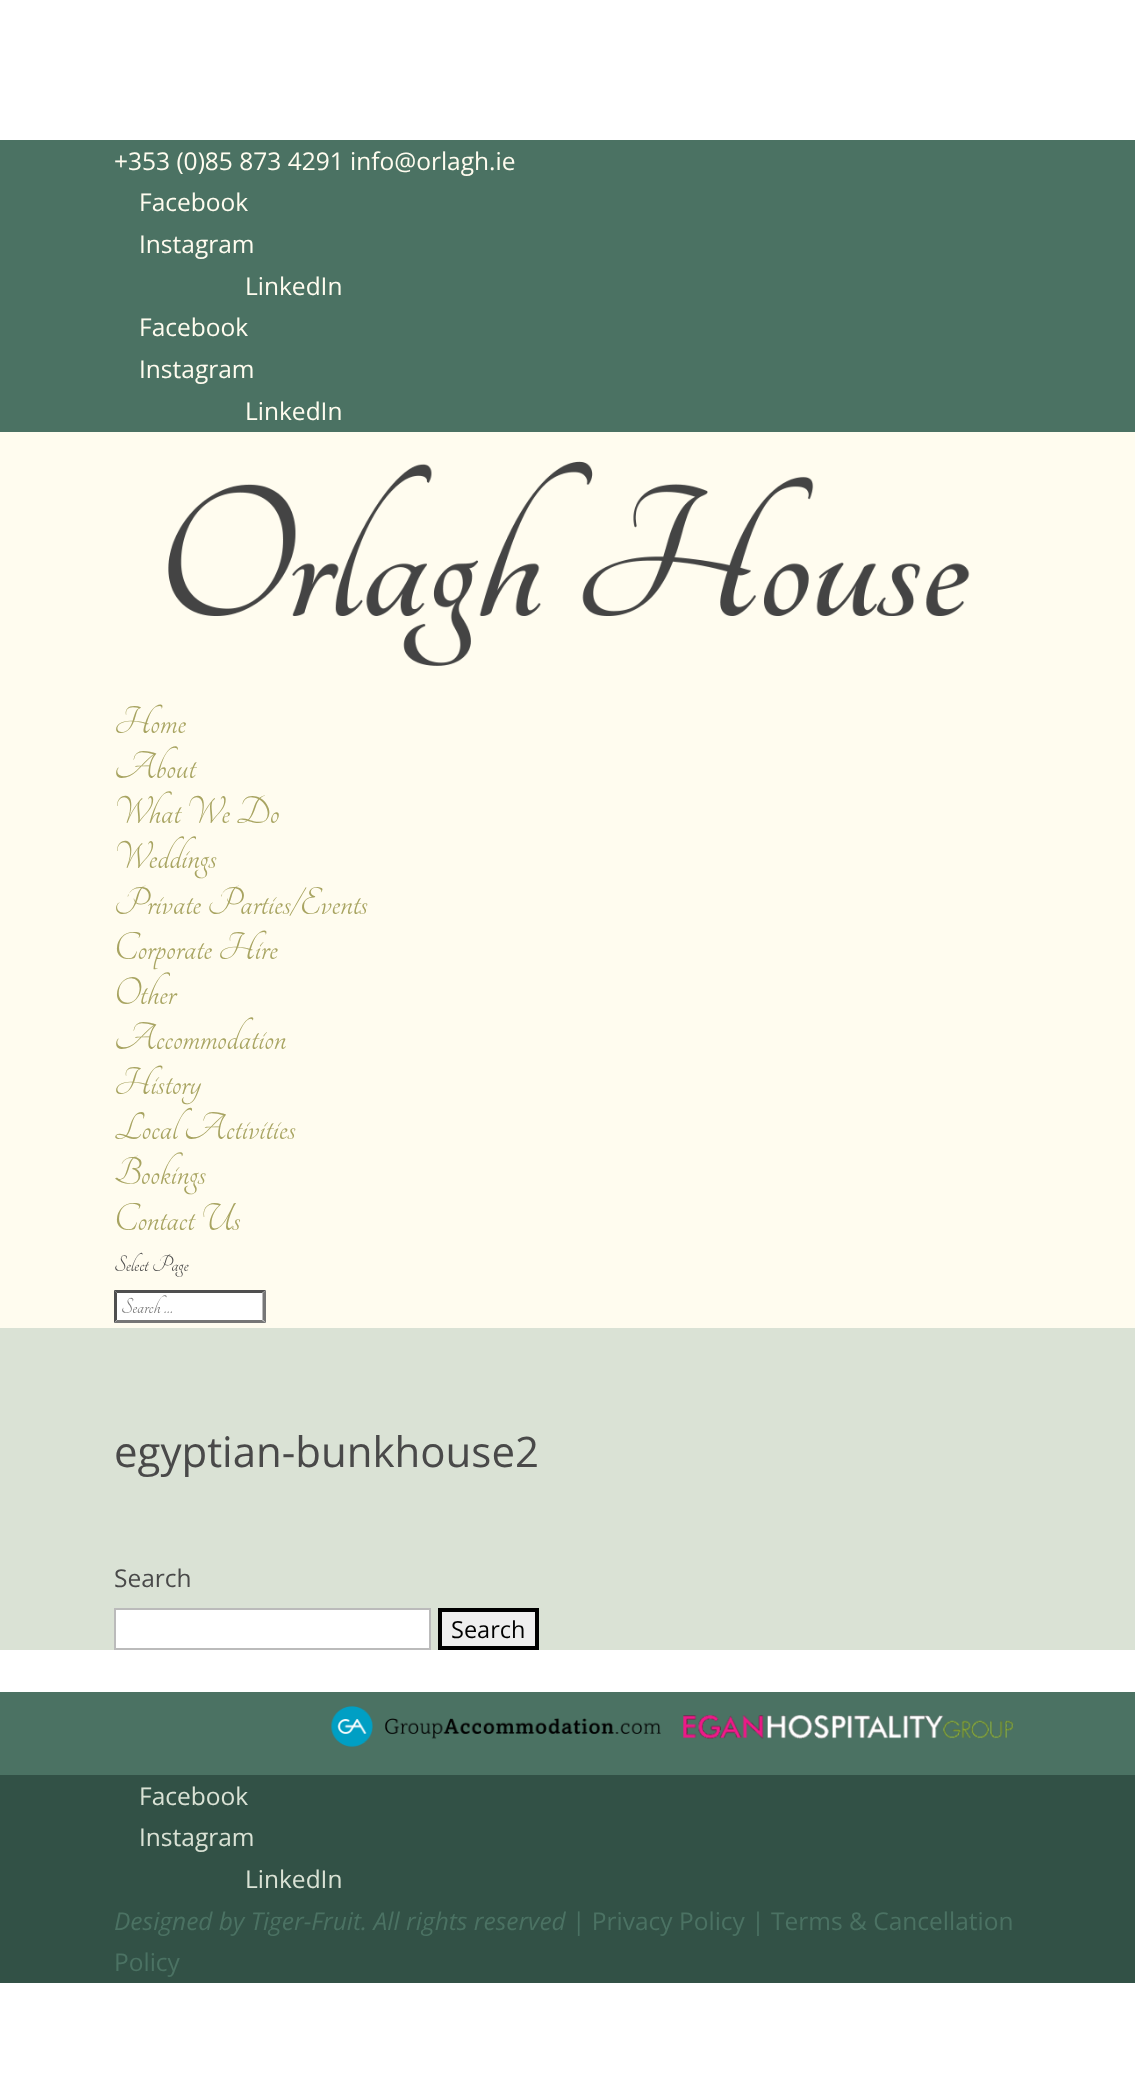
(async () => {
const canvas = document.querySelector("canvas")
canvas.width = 1135
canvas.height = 2091
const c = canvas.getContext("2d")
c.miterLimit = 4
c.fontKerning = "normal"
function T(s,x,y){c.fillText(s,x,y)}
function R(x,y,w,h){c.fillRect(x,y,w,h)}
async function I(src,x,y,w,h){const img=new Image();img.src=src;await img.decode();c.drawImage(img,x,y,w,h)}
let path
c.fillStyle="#fff"
R(0,0,1135,2091)
c.fillStyle="#4b7263"
R(0,140,1135,292)
c.font="24.5px Open Sans"
c.fillStyle="#fffcef"
T("+353 (0)85 873 4291 info@orlagh.ie",114,170)
T("Facebook",139,211)
T("Instagram",139,253)
T("LinkedIn",245,295)
T("Facebook",139,336)
T("Instagram",139,378)
T("LinkedIn",245,420)
R(0,432,1135,896)
await I("1.png",168,461,802,205)
c.font="42px Tangerine"
c.fillStyle="#a8a461"
T("Home",114,733)
T("About",114,778)
T("What We Do",114,823)
T("Weddings",114,868)
T("Private Parties/Events",114,914)
T("Corporate Hire",114,959)
T("Other",114,1004)
T("Accommodation",114,1049)
T("History",114,1094)
T("Local Activities",114,1139)
T("Bookings",114,1184)
T("Contact Us",114,1230)
c.font="24.5px Tangerine"
c.fillStyle="#494949"
T("Select Page",114,1271)
c.fillStyle="#fff"
R(114,1290,152,33)
c.fillStyle="#4f4f4f"
path = new Path2D("M114 1290h152l-4 3h-145z")
c.fill(path)
c.fillStyle="#767676"
path = new Path2D("M266 1290v33l-3.5-3.5v-26.5z")
c.fill(path)
path = new Path2D("M266 1323h-152l3-3h145z")
c.fill(path)
c.fillStyle="#4f4f4f"
path = new Path2D("M114 1323v-33l3 3v26.5z")
c.fill(path)
c.font="23.5px Tangerine"
c.fillStyle="#757575"
T("Search …",121,1313)
c.fillStyle="#dae2d5"
R(0,1328,1135,322)
c.font="42px Open Sans"
c.fillStyle="#494949"
T("egyptian-bunkhouse2",114,1467)
c.font="24.5px Open Sans"
T("Search",114,1587)
c.fillStyle="#fff"
c.beginPath()
c.rect(115,1609,315,40)
c.fill()
c.strokeStyle="#bbb"
c.lineWidth=2
c.stroke()
c.fillStyle="#efefef"
c.beginPath()
c.rect(440,1610,97,38)
c.fill()
c.strokeStyle="#000"
c.lineWidth=4
c.stroke()
c.font="23.5px Open Sans"
c.fillStyle="#000"
T("Search",451,1638)
c.fillStyle="#4b7263"
R(0,1692,1135,83)
await I("2.png",331,1706,330,41)
await I("3.png",683,1715,331,24)
c.fillStyle="#325146"
R(0,1775,1135,208)
c.font="24.5px Open Sans"
c.fillStyle="#dae2d5"
T("Facebook",139,1805)
T("Instagram",139,1846)
T("LinkedIn",245,1888)
c.font="italic 24.5px Open Sans"
c.fillStyle="#4b7263"
T("Designed by Tiger-Fruit. All rights reserved",114,1930)
c.font="24.5px Open Sans"
T("| Privacy Policy | Terms & Cancellation",572,1930)
T("Policy",114,1971)
})()
